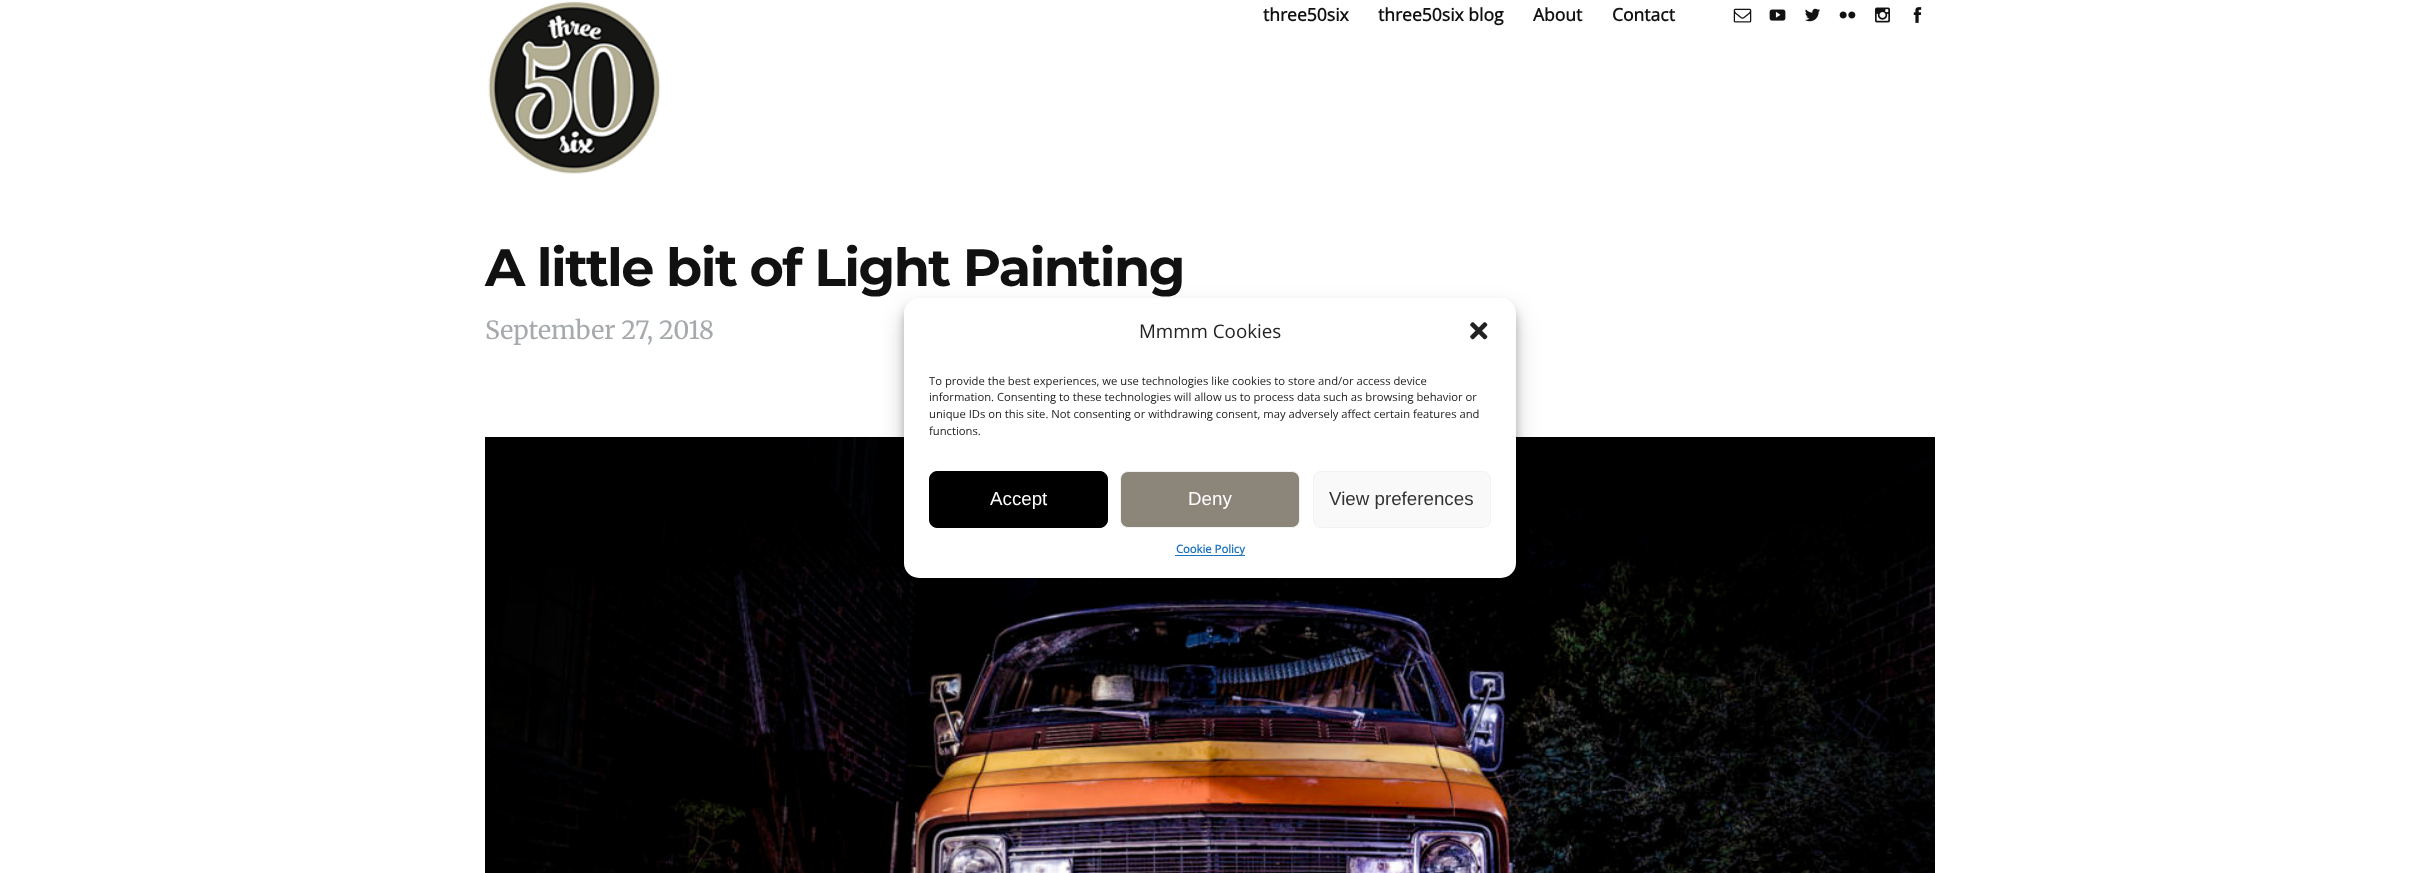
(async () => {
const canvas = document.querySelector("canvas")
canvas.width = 2420
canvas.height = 873
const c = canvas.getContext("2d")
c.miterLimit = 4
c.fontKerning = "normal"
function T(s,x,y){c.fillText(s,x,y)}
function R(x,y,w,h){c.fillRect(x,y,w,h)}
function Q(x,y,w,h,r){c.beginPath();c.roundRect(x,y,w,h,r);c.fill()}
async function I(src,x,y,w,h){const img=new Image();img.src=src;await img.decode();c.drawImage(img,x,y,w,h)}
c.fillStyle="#fff"
R(0,0,2420,873)
await I("1.png",488,1,173,173)
c.font="bold 17.5px Open Sans"
c.fillStyle="#111"
T("three50six",1263,21)
T("three50six blog",1378,21)
T("About",1533,21)
T("Contact",1612,21)
await I("2.png",1733,8,19,15)
await I("3.png",1769,9,17,12)
await I("4.png",1805,8,15,14)
await I("5.png",1839,11,17,8)
await I("6.png",1875,7,15,16)
await I("7.png",1913,7,9,16)
c.letterSpacing="-1.6px"
c.font="100 52.5px Montserrat"
T("A little bit of Light Painting",485,286)
c.letterSpacing="0px"
c.font="300 25px Merriweather"
c.fillStyle="#a6aaad"
T("September 27, 2018",485,339)
await I("8.png",485,437,1450,436)
c.fillStyle="#0000003b"
c.filter="blur(4px)"
c.beginPath()
c.roundRect(904,305,612,280,15)
c.fill()
c.filter="none"
c.fillStyle="#00000030"
c.filter="blur(12.5px)"
c.beginPath()
c.roundRect(904,310,612,280,15)
c.fill()
c.filter="none"
c.fillStyle="#fff"
Q(904,298,612,280,15)
c.font="18.75px Open Sans"
c.fillStyle="#222"
T("Mmmm Cookies",1139,338)
await I("9.png",1470,322,18,18)
c.font="11.25px Open Sans"
T("To provide the best experiences, we use technologies like cookies to store and/or access device",929,385)
T("information. Consenting to these technologies will allow us to process data such as browsing behavior or",929,401)
T("unique IDs on this site. Not consenting or withdrawing consent, may adversely affect certain features and",929,418)
T("functions.",929,435)
c.fillStyle="#000"
c.beginPath()
c.roundRect(929.5,471.5,178,56,7.5)
c.fill()
c.strokeStyle="#000"
c.stroke()
c.font="18.75px Liberation Sans"
c.fillStyle="#fff"
T("Accept",990,505)
c.fillStyle="#8c857a"
c.beginPath()
c.roundRect(1120.5,471.5,179,56,7.5)
c.fill()
c.strokeStyle="#f2f2f2"
c.stroke()
c.fillStyle="#fff"
T("Deny",1188,505)
c.fillStyle="#f9f9f9"
c.beginPath()
c.roundRect(1313.5,471.5,177,56,7.5)
c.fill()
c.stroke()
c.fillStyle="#333"
T("View preferences",1329,505)
c.fillStyle="#1e73be"
R(1175,555,70,1)
c.font="bold 11.25px Open Sans"
T("Cookie Policy",1176,553)
})()
